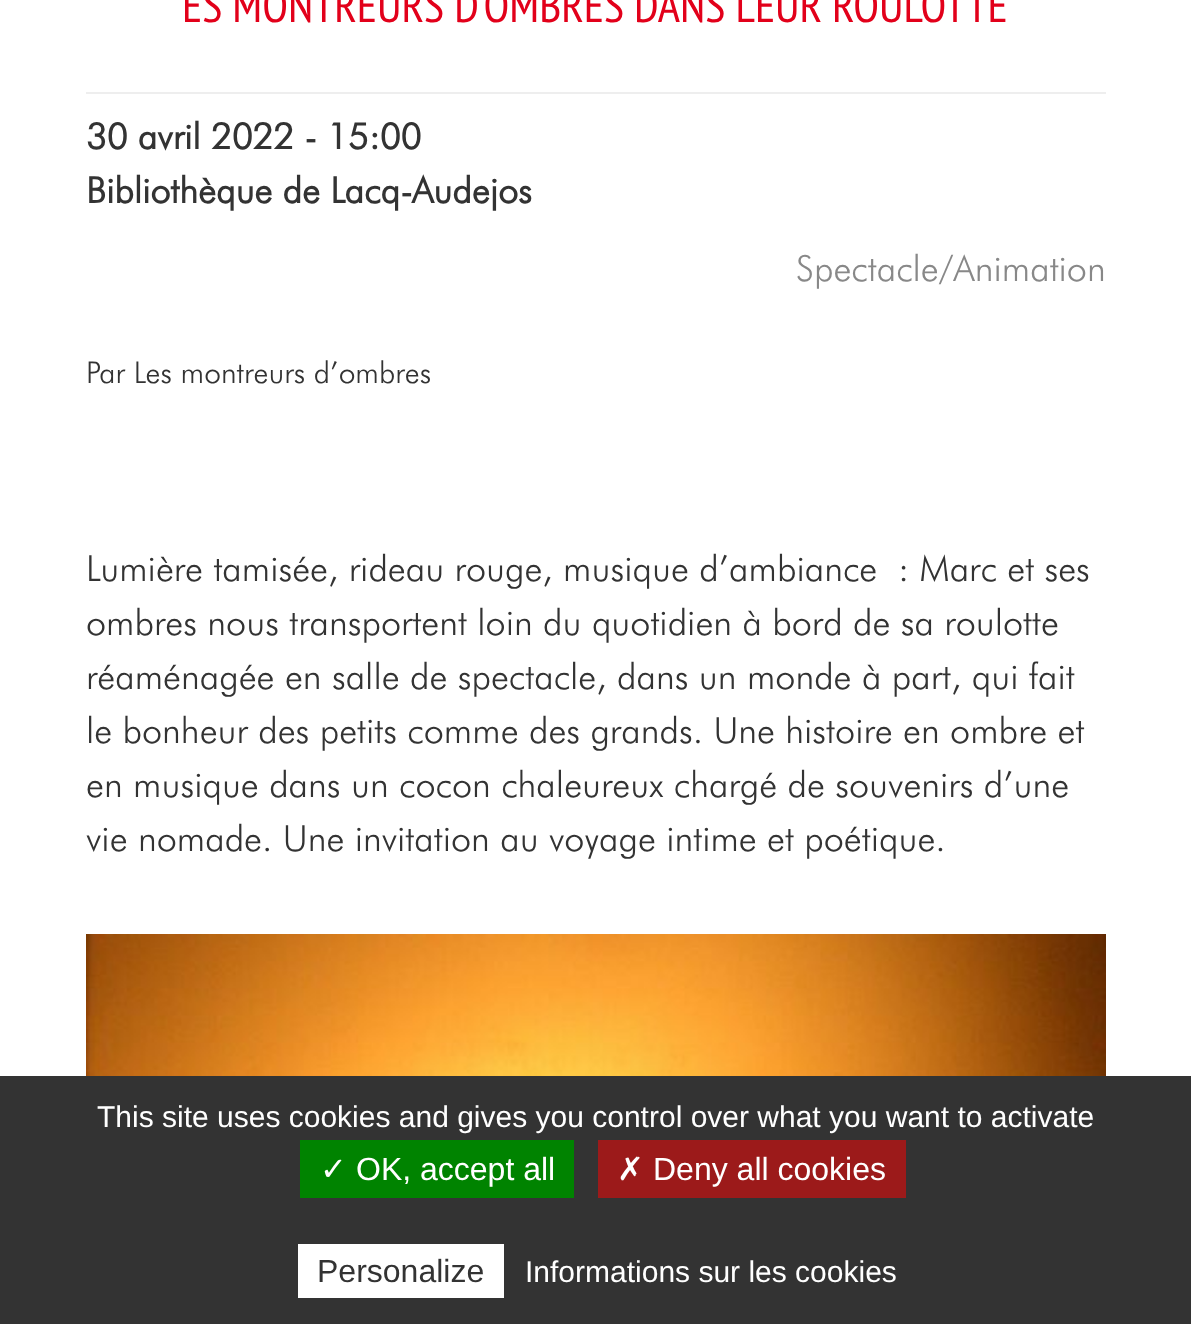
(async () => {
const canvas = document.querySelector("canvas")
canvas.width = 1191
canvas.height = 1324
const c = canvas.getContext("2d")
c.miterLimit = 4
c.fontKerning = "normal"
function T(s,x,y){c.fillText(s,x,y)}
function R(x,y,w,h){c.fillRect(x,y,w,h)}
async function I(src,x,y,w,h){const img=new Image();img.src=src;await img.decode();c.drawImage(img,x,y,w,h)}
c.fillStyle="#fff"
R(0,0,1191,1324)
c.font="47px PT Sans Narrow"
c.fillStyle="#e2001a"
T("ES MONTREURS D’OMBRES DANS LEUR ROULOTTE",182,22)
c.fillStyle="#eee"
R(86,92,1020,2)
c.font="bold 36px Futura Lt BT"
c.fillStyle="#333"
T("30 avril 2022 - 15:00",86,149)
T("Bibliothèque de Lacq-Audejos",86,203)
c.font="300 36px Futura Lt BT"
c.fillStyle="#888"
T("Spectacle/Animation",796,281)
c.font="300 30px Futura Lt BT"
c.fillStyle="#333"
T("Par Les montreurs d’ombres",86,383)
c.font="300 36px Futura Lt BT"
T("Lumière tamisée, rideau rouge, musique d’ambiance",86,581)
T(": Marc et ses",898,581)
T("ombres nous transportent loin du quotidien à bord de sa roulotte",86,635)
T("réaménagée en salle de spectacle, dans un monde à part, qui fait",86,689)
T("le bonheur des petits comme des grands. Une histoire en ombre et",86,743)
T("en musique dans un cocon chaleureux chargé de souvenirs d’une",86,797)
T("vie nomade. Une invitation au voyage intime et poétique.",86,851)
await I("1.png",86,934,1020,142)
R(0,1076,1191,248)
c.font="30px Liberation Sans"
c.fillStyle="#fff"
T("This site uses cookies and gives you control over what you want to activate",97,1127)
c.fillStyle="#008300"
R(300,1140,274,58)
c.font="32px DejaVu Sans"
c.fillStyle="#fff"
T("✓",320,1180)
c.font="32px Liberation Sans"
T("OK, accept all",356,1180)
c.fillStyle="#9c1a1a"
R(598,1140,308,58)
c.font="32px DejaVu Sans"
c.fillStyle="#fff"
T("✗",617,1180)
c.font="32px Liberation Sans"
T("Deny all cookies",653,1180)
R(298,1244,206,54)
c.fillStyle="#333"
T("Personalize",317,1282)
c.font="30px Liberation Sans"
c.fillStyle="#fff"
T("Informations sur les cookies",525,1282)
})()
